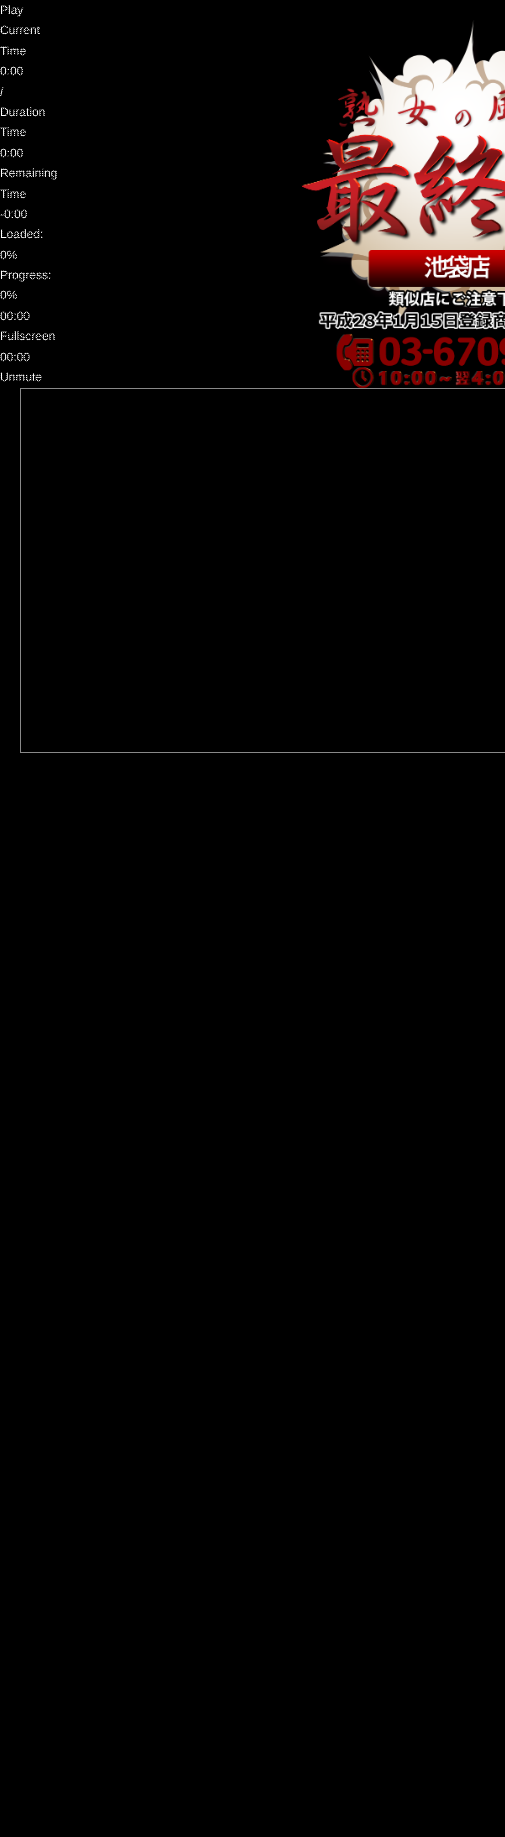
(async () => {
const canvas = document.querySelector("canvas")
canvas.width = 505
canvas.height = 1837
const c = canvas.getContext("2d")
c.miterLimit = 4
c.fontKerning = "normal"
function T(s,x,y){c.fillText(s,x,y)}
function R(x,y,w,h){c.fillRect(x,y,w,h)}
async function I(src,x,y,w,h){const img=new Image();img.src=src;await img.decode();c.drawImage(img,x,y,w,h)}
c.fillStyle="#000"
R(0,0,505,1837)
c.font="12px Liberation Sans"
c.fillStyle="#fff"
T("Play",0,14)
T("Current",0,34)
T("Time",0,55)
T("0:00",0,75)
T("/",0,96)
T("Duration",0,116)
T("Time",0,136)
T("0:00",0,157)
T("Remaining",0,177)
T("Time",0,198)
T("-0:00",0,218)
T("Loaded:",0,238)
T("0%",0,259)
T("Progress:",0,279)
T("0%",0,299)
T("00:00",0,320)
T("Fullscreen",0,340)
T("00:00",0,361)
T("Unmute",0,381)
await I("1.png",0,6,57,375)
await I("2.png",301,20,204,310)
await I("3.png",336,333,169,55)
c.strokeStyle="#898989"
c.strokeRect(20.5,388.5,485,364)
})()
